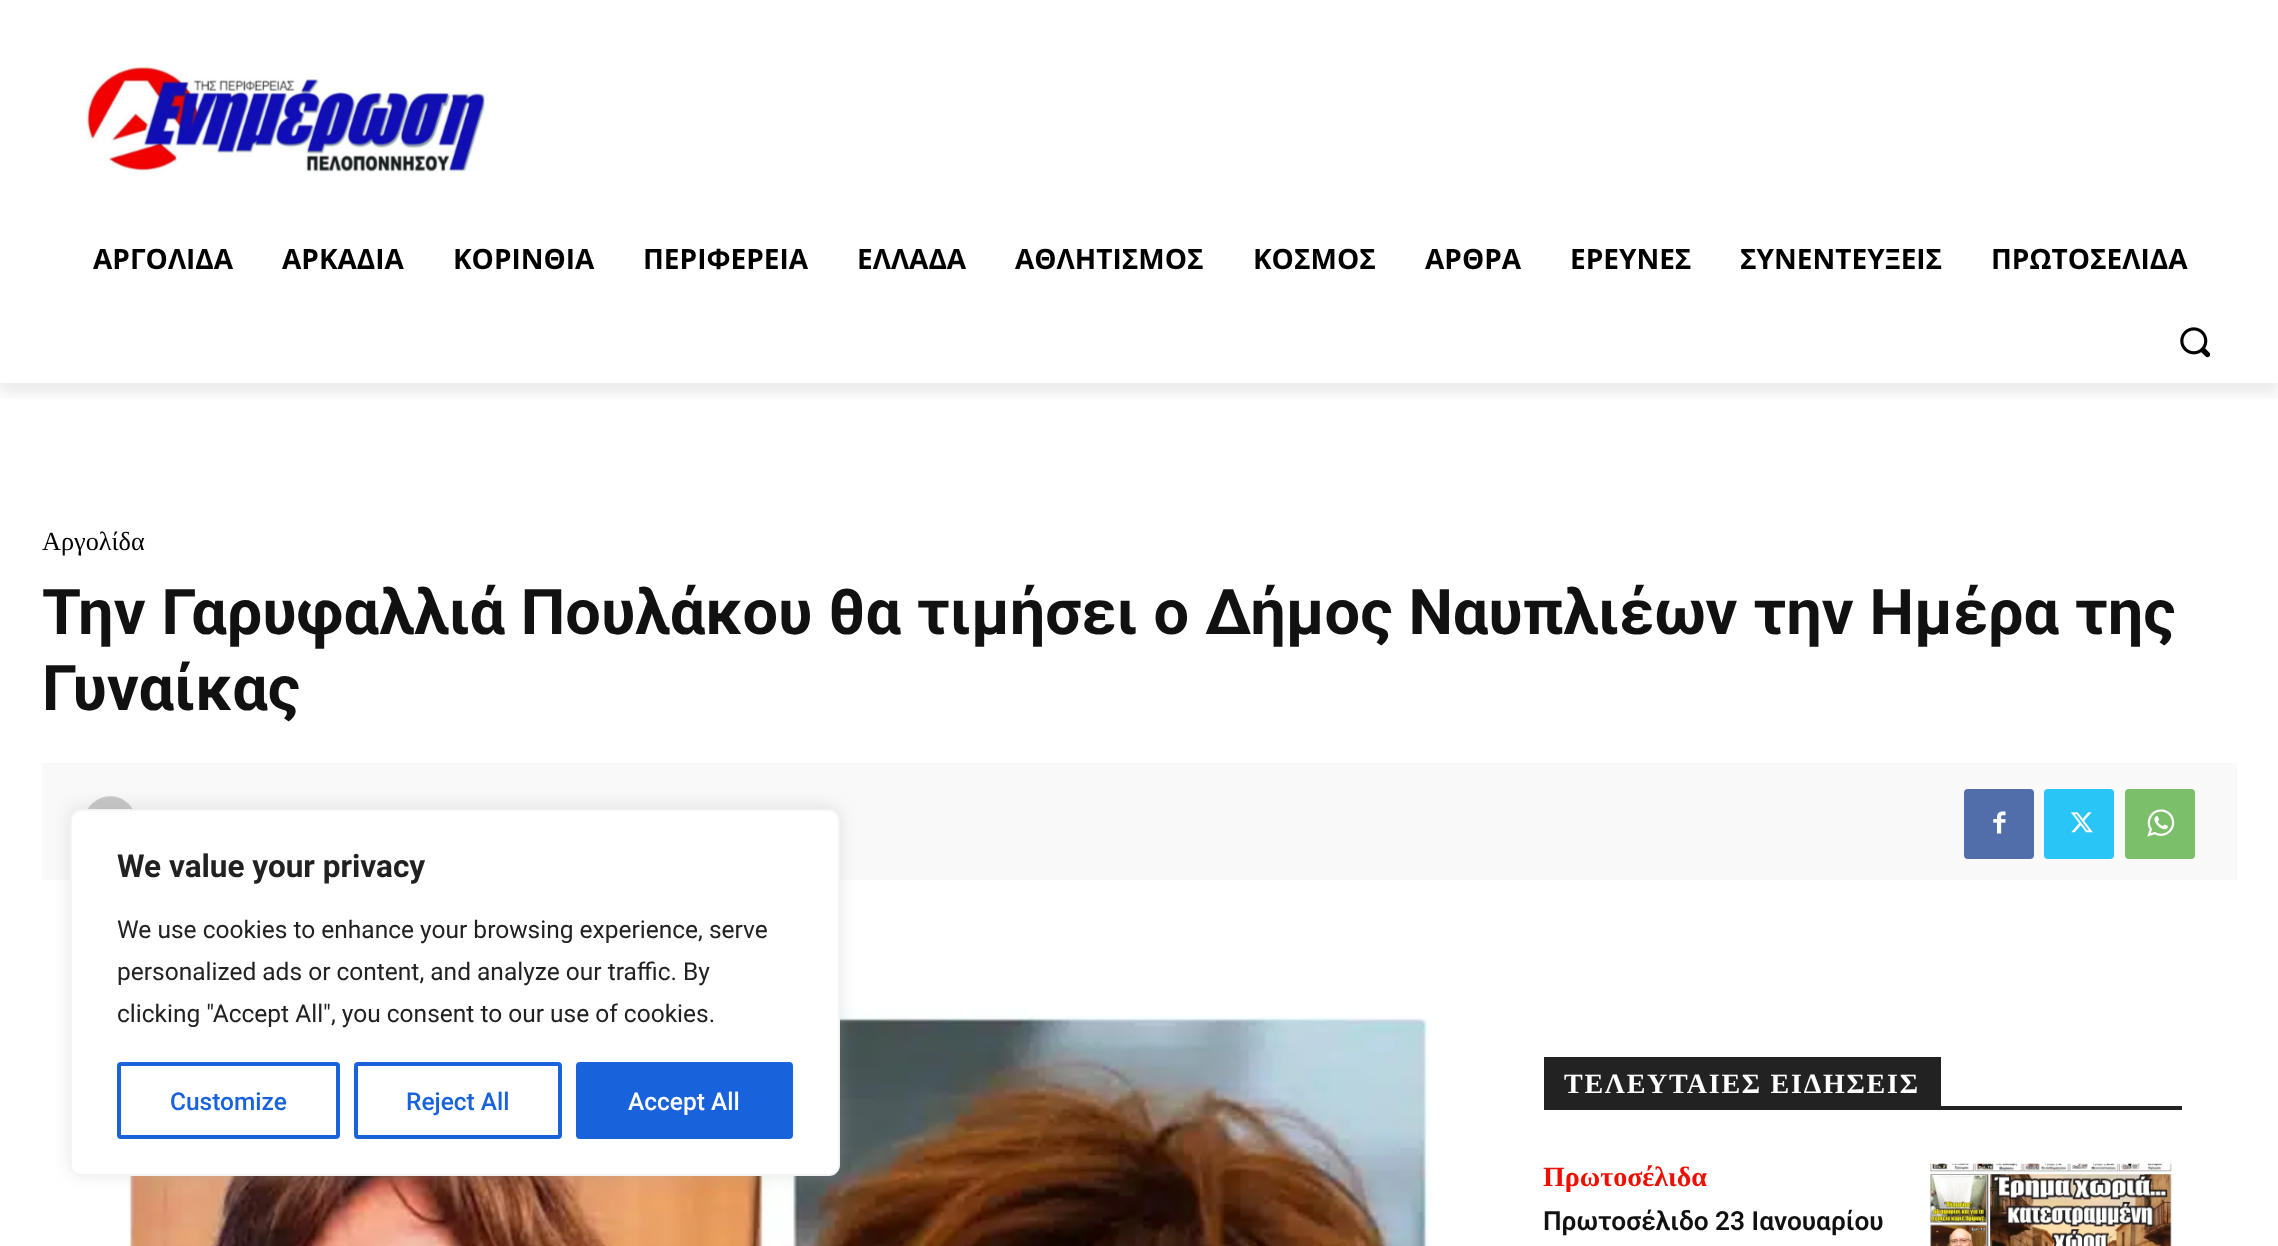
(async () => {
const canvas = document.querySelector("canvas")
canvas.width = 2278
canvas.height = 1246
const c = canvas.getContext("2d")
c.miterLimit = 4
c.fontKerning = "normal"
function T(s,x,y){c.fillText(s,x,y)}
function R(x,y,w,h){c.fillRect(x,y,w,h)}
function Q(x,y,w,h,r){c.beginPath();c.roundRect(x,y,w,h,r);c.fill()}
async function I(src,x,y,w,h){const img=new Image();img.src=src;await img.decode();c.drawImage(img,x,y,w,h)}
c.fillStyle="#fff"
R(0,0,2278,1246)
await I("1.png",86,66,399,108)
c.save()
c.beginPath()
c.rect(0,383,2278,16)
c.clip()
c.fillStyle="#00000014"
c.filter="blur(7px)"
c.beginPath()
c.rect(0,11,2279,383)
c.fill()
c.filter="none"
c.restore()
c.font="bold 28px Open Sans"
c.fillStyle="#000"
T("ΑΡΓΟΛΙΔΑ",93,269)
T("ΑΡΚΑΔΙΑ",282,269)
T("ΚΟΡΙΝΘΙΑ",453,269)
T("ΠΕΡΙΦΕΡΕΙΑ",643,269)
T("ΕΛΛΑΔΑ",857,269)
T("ΑΘΛΗΤΙΣΜΟΣ",1015,269)
T("ΚΟΣΜΟΣ",1253,269)
T("ΑΡΘΡΑ",1425,269)
T("ΕΡΕΥΝΕΣ",1570,269)
T("ΣΥΝΕΝΤΕΥΞΕΙΣ",1740,269)
T("ΠΡΩΤΟΣΕΛΙΔΑ",1991,269)
await I("2.png",2180,327,31,31)
c.font="26.25px Liberation Serif"
T("Αργολίδα",42,550)
c.wordSpacing="0.25px"
c.font="bold 63px Roboto"
c.fillStyle="#111"
T("Την Γαρυφαλλιά Πουλάκου θα τιμήσει ο Δήμος Ναυπλιέων την Ημέρα της",42,634)
c.wordSpacing="0px"
T("Γυναίκας",42,710)
c.fillStyle="#f9f9f9"
R(42,763,2195,117)
await I("3.png",87,796,46,13)
c.fillStyle="#516eab"
Q(1964,789,70,70,4)
await I("4.png",1993,811,13,23)
c.fillStyle="#29c5f6"
Q(2044,789,70,70,4)
await I("5.png",2071,812,22,21)
c.fillStyle="#7bbf6a"
Q(2125,789,70,70,4)
await I("6.png",2147,809,28,28)
await I("7.png",127,1008,1303,238)
c.fillStyle="#222"
R(1544,1106,638,4)
R(1544,1057,397,49)
c.letterSpacing="1.75px"
c.font="bold 28px Liberation Serif"
c.fillStyle="#fff"
T("ΤΕΛΕΥΤΑΙΕΣ ΕΙΔΗΣΕΙΣ",1564,1093)
c.letterSpacing="0px"
c.fillStyle="#ef0f00"
T("Πρωτοσέλιδα",1543,1186)
c.font="600 26.25px Roboto"
c.fillStyle="#111"
T("Πρωτοσέλιδο 23 Ιανουαρίου",1543,1230)
await I("8.png",1929,1163,245,83)
c.fillStyle="#acabab4d"
c.filter="blur(9px)"
c.beginPath()
c.roundRect(70,807,770,367,11)
c.fill()
c.filter="none"
c.fillStyle="#fff"
c.beginPath()
c.roundRect(71,810,768,365,10)
c.fill()
c.strokeStyle="#f4f4f4"
c.lineWidth=2
c.stroke()
c.font="bold 31.5px Roboto"
c.fillStyle="#212121"
T("We value your privacy",117,877)
c.font="24.5px Roboto"
T("We use cookies to enhance your browsing experience, serve",117,938)
T("personalized ads or content, and analyze our traffic. By",117,980)
T("clicking \"Accept All\", you consent to our use of cookies.",117,1022)
c.beginPath()
c.roundRect(119,1064,219,73,2)
c.strokeStyle="#1863dc"
c.lineWidth=4
c.stroke()
c.font="500 24.5px Roboto"
c.fillStyle="#1863dc"
T("Customize",170,1110)
c.beginPath()
c.roundRect(356,1064,204,73,2)
c.stroke()
T("Reject All",406,1110)
c.beginPath()
c.roundRect(578,1064,213,73,2)
c.fill()
c.stroke()
c.fillStyle="#fff"
T("Accept All",628,1110)
})()
